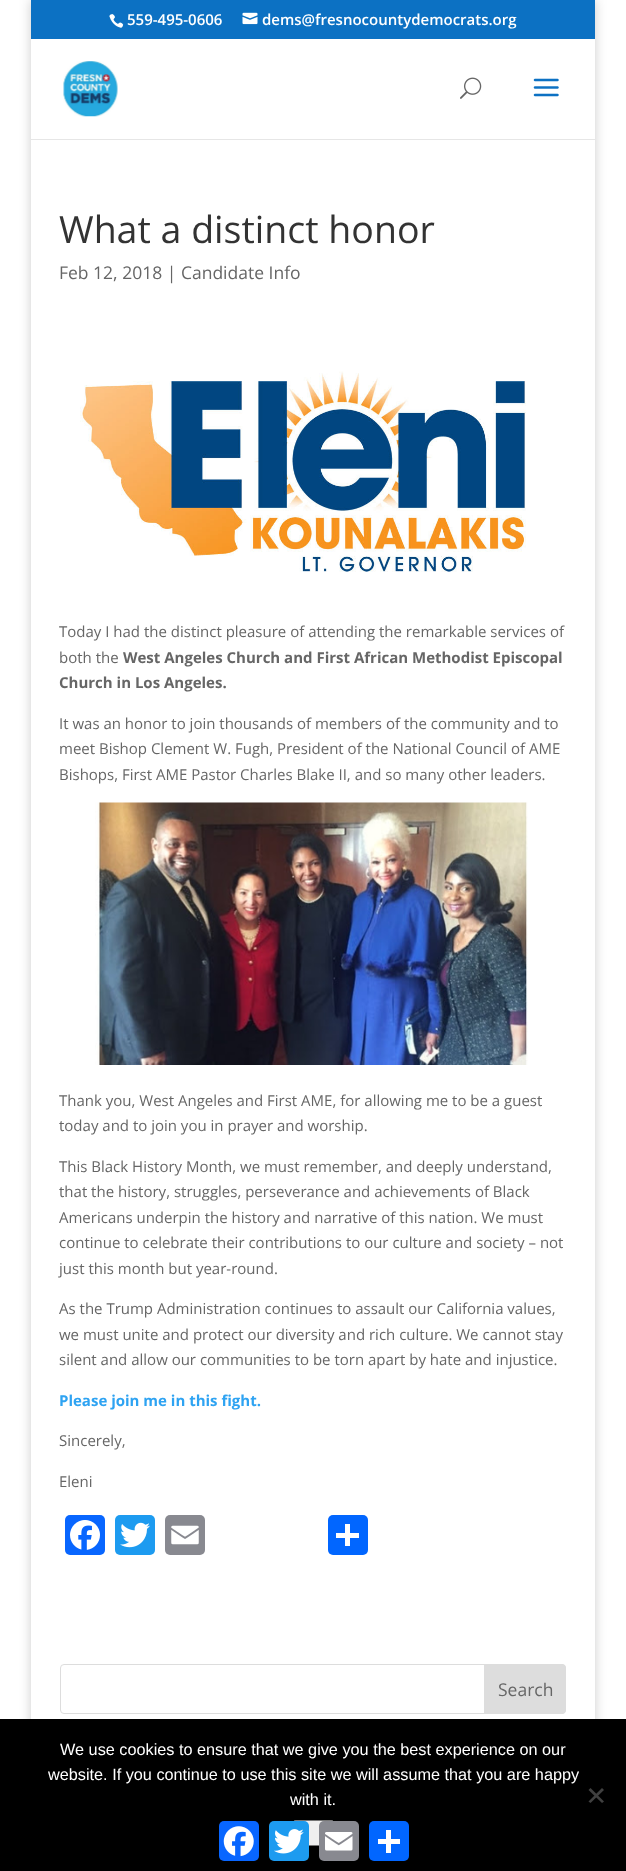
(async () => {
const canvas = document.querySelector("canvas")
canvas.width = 626
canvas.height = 1871
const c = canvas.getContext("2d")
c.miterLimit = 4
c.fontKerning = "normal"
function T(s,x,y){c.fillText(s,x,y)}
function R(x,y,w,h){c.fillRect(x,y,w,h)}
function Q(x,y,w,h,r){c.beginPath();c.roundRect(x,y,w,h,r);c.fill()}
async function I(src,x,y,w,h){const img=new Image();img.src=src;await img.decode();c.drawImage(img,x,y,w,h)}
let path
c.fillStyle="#fff"
R(0,0,626,1871)
c.fillStyle="#00000033"
c.filter="blur(6px)"
c.beginPath()
c.rect(31,0,564,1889)
c.fill()
c.filter="none"
c.fillStyle="#0c71c3"
R(31,0,564,39)
await I("1.png",109,14,15,14)
c.font="600 15px Open Sans"
c.fillStyle="#fff"
T("559-495-0606",127,25)
await I("2.png",242,12,16,13)
T("dems@fresnocountydemocrats.org",262,25)
c.fillStyle="#e6e6e6"
path = new Path2D("M31 40v100h564v-1h-564z")
c.fill(path)
c.fillStyle="#fff"
R(31,39,564,100)
await I("3.png",63,61,55,56)
await I("4.png",460,77,22,22)
await I("5.png",533,78,26,19)
R(31,140,564,1579)
c.font="37.5px Open Sans"
c.fillStyle="#333"
T("What a distinct honor",59,243)
c.font="17.5px Open Sans"
c.fillStyle="#666"
T("Feb 12, 2018 | Candidate Info",59,279)
await I("6.png",80,371,446,201)
c.font="15px Open Sans"
T("Today I had the distinct pleasure of attending the remarkable services of",59,637)
T("both the",59,663)
c.font="bold 15px Open Sans"
T("West Angeles Church and First African Methodist Episcopal",123,663)
T("Church in Los Angeles.",59,688)
c.font="15px Open Sans"
T("It was an honor to join thousands of members of the community and to",59,729)
T("meet Bishop Clement W. Fugh, President of the National Council of AME",59,754)
T("Bishops, First AME Pastor Charles Blake II, and so many other leaders.",59,780)
await I("7.png",95,802,433,263)
T("Thank you, West Angeles and First AME, for allowing me to be a guest",59,1106)
T("today and to join you in prayer and worship.",59,1131)
T("This Black History Month, we must remember, and deeply understand,",59,1172)
T("that the history, struggles, perseverance and achievements of Black",59,1197)
T("Americans underpin the history and narrative of this nation. We must",59,1223)
T("continue to celebrate their contributions to our culture and society – not",59,1248)
T("just this month but year-round.",59,1274)
T("As the Trump Administration continues to assault our California values,",59,1314)
T("we must unite and protect our diversity and rich culture. We cannot stay",59,1340)
T("silent and allow our communities to be torn apart by hate and injustice.",59,1365)
c.font="bold 15px Open Sans"
c.fillStyle="#2ea3f2"
T("Please join me in this fight.",59,1406)
c.font="15px Open Sans"
c.fillStyle="#666"
T("Sincerely,",59,1446)
T("Eleni",59,1487)
c.fillStyle="#0866ff"
Q(65,1515,40,40,5)
await I("8.png",70,1520,30,30)
c.fillStyle="#1d9bf0"
Q(115,1515,40,40,5)
await I("9.png",120,1522,30,26)
c.fillStyle="#888990"
Q(165,1515,40,40,5)
await I("10.png",171,1525,28,20)
c.fillStyle="#0166ff"
Q(328,1515,40,40,5)
c.fillStyle="#fff"
R(345,1524,5,22)
R(336,1533,23,5)
c.beginPath()
c.roundRect(60.5,1664.5,505,49,3.5)
c.strokeStyle="#ddd"
c.stroke()
c.fillStyle="#ddd"
c.beginPath()
c.roundRect(484.5,1664.5,81,49,[0,3.5,3.5,0])
c.fill()
c.stroke()
c.font="17.5px Open Sans"
c.fillStyle="#666"
T("Search",498,1696)
c.fillStyle="#000"
R(0,1719,626,152)
c.font="16.25px Liberation Sans"
c.fillStyle="#fff"
T("We use cookies to ensure that we give you the best experience on our",60,1755)
T("website. If you continue to use this site we will assume that you are happy",48,1780)
T("with it.",290,1805)
c.fillStyle="#404040"
path = new Path2D("M602 1788l2 2l-13.5 13l-2-1.5z")
c.fill(path)
path = new Path2D("M588.5 1790l2-2l13.5 13.5l-2 1.5z")
c.fill(path)
c.fillStyle="#efefef"
c.beginPath()
c.roundRect(293.5,1820.5,40,25,2)
c.fill()
c.strokeStyle="#767676"
c.stroke()
c.fillStyle="#0866ff"
Q(219,1821,40,40,5)
await I("11.png",223,1826,31,31)
c.fillStyle="#1d9bf0"
Q(269,1821,40,40,5)
await I("12.png",274,1829,30,25)
c.fillStyle="#888990"
Q(319,1821,40,40,5)
await I("13.png",325,1832,28,19)
c.fillStyle="#0166ff"
Q(369,1821,40,40,5)
c.fillStyle="#fff"
R(386,1830,5,23)
R(378,1839,22,5)
})()
